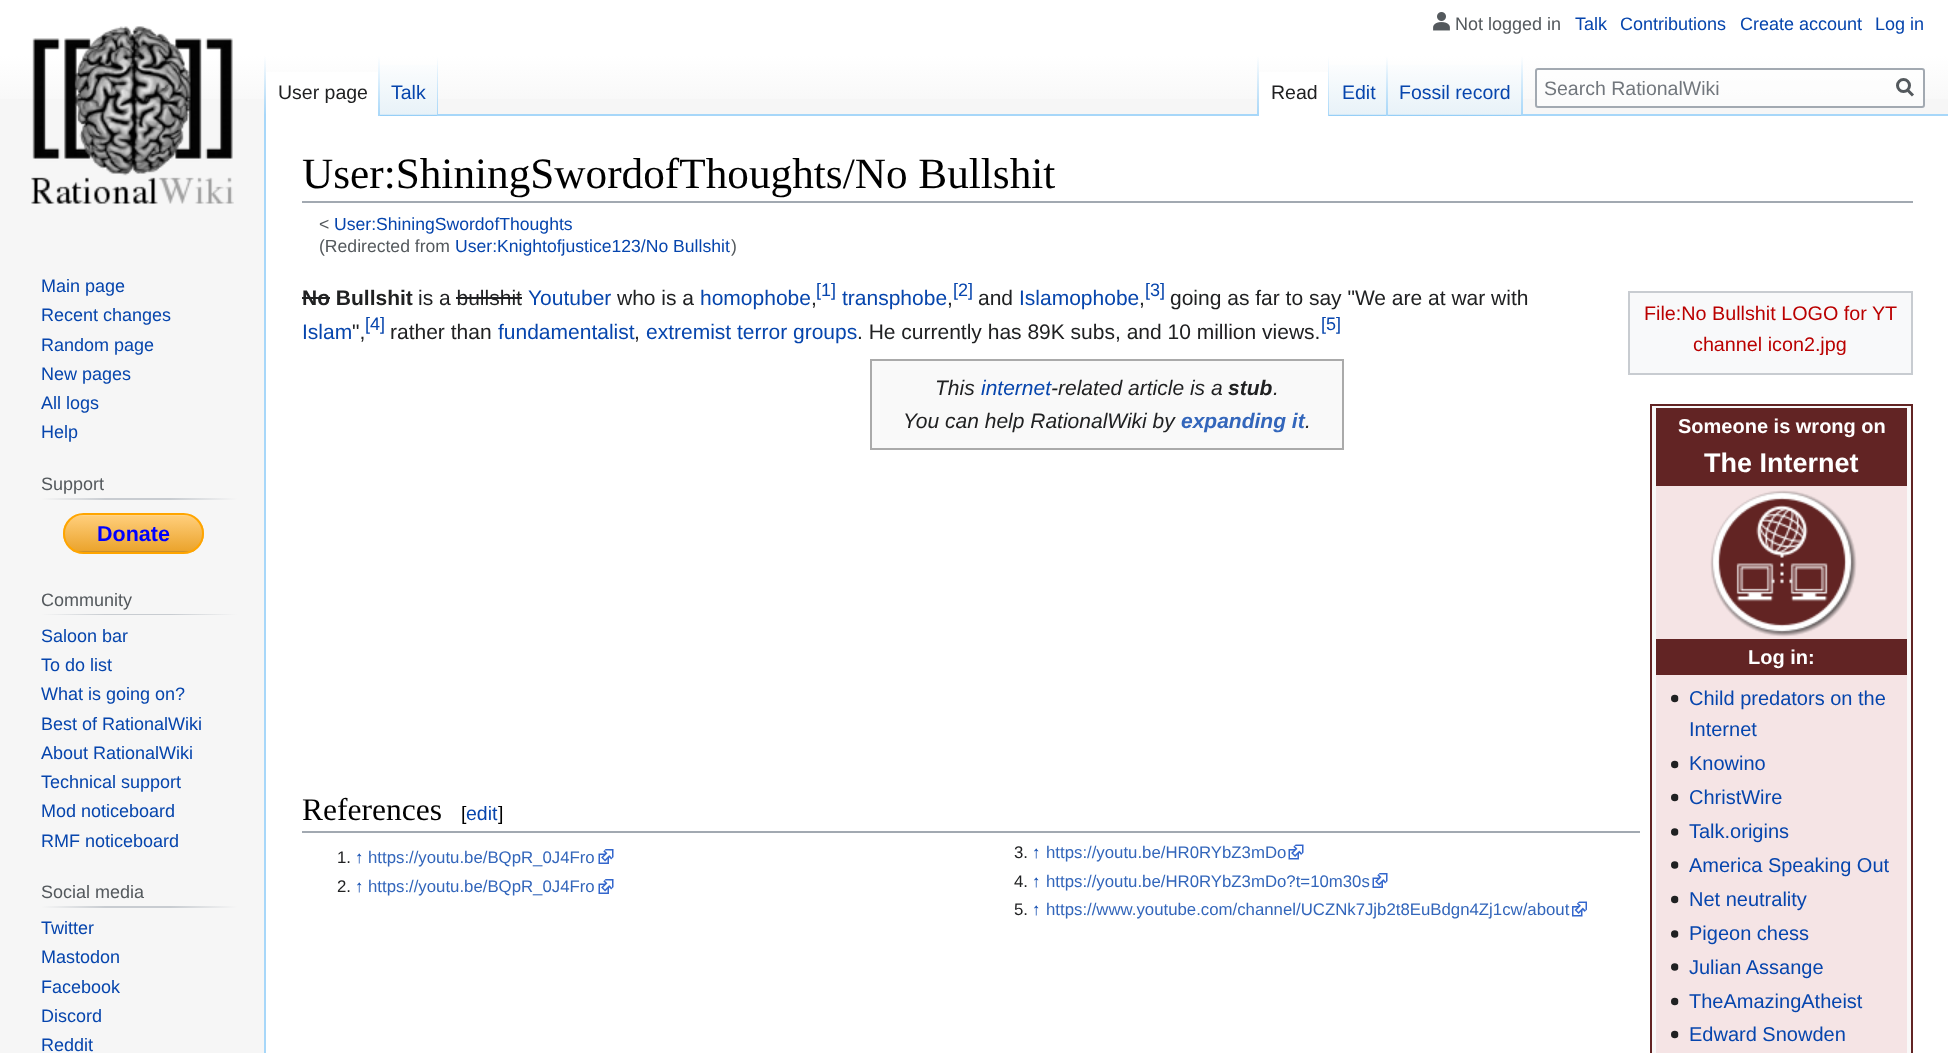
(async () => {
const canvas = document.querySelector("canvas")
canvas.width = 1948
canvas.height = 1053
const c = canvas.getContext("2d")
c.miterLimit = 4
c.fontKerning = "normal"
function T(s,x,y){c.fillText(s,x,y)}
function R(x,y,w,h){c.fillRect(x,y,w,h)}
async function I(src,x,y,w,h){const img=new Image();img.src=src;await img.decode();c.drawImage(img,x,y,w,h)}
let gradient, path
c.fillStyle="#f6f6f6"
R(0,0,1948,1053)
gradient = c.createLinearGradient(974,-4.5,974,116)
gradient.addColorStop(.5,"#fff")
gradient.addColorStop(1,"#f6f6f6")
c.fillStyle = gradient
R(0,0,1948,99)
await I("1.png",1433,12,17,19)
c.font="18px Liberation Sans"
c.fillStyle="#54595d"
T("Not logged in",1455,30)
c.fillStyle="#0645ad"
T("Talk",1575,30)
T("Contributions",1620,30)
T("Create account",1740,30)
T("Log in",1875,30)
c.fillStyle="#a7d7f9"
R(264,114,2,939)
gradient = c.createLinearGradient(265,56,265,116)
gradient.addColorStop(0,"#a7d7f900")
gradient.addColorStop(1,"#a7d7f9")
c.fillStyle = gradient
R(264,56,2,60)
c.fillStyle="#fff"
R(266,72,112,44)
gradient = c.createLinearGradient(379,56,379,116)
gradient.addColorStop(0,"#fff")
gradient.addColorStop(1,"#a7d7f9")
c.fillStyle = gradient
R(378,56,2,60)
c.font="19.5px Liberation Sans"
c.fillStyle="#202122"
T("User page",278,99)
gradient = c.createLinearGradient(409,116,409,56)
gradient.addColorStop(0,"#77c1f6")
gradient.addColorStop(.03,"#e8f2f8")
gradient.addColorStop(1,"#fff")
c.fillStyle = gradient
R(380,65,58,51)
gradient = c.createLinearGradient(437,56,437,116)
gradient.addColorStop(0,"#a7d7f900")
gradient.addColorStop(1,"#a7d7f9")
c.fillStyle = gradient
R(437,56,1,60)
c.fillStyle="#0645ad"
T("Talk",391,99)
c.fillStyle="#a7d7f9"
R(438,114,1510,2)
gradient = c.createLinearGradient(1258,56,1258,116)
gradient.addColorStop(0,"#a7d7f900")
gradient.addColorStop(1,"#a7d7f9")
c.fillStyle = gradient
R(1257,56,2,60)
c.fillStyle="#fff"
R(1259,72,69,44)
gradient = c.createLinearGradient(1328,56,1328,116)
gradient.addColorStop(0,"#fff")
gradient.addColorStop(1,"#a7d7f9")
c.fillStyle = gradient
R(1328,56,1,60)
c.fillStyle="#202122"
T("Read",1271,99)
gradient = c.createLinearGradient(1358,116,1358,56)
gradient.addColorStop(0,"#77c1f6")
gradient.addColorStop(.03,"#e8f2f8")
gradient.addColorStop(1,"#fff")
c.fillStyle = gradient
R(1329,65,59,51)
gradient = c.createLinearGradient(1387,56,1387,116)
gradient.addColorStop(0,"#a7d7f900")
gradient.addColorStop(1,"#a7d7f9")
c.fillStyle = gradient
R(1386,56,2,60)
c.fillStyle="#0645ad"
T("Edit",1342,99)
gradient = c.createLinearGradient(1455,116,1455,56)
gradient.addColorStop(0,"#77c1f6")
gradient.addColorStop(.03,"#e8f2f8")
gradient.addColorStop(1,"#fff")
c.fillStyle = gradient
R(1388,65,135,51)
gradient = c.createLinearGradient(1522,56,1522,116)
gradient.addColorStop(0,"#a7d7f900")
gradient.addColorStop(1,"#a7d7f9")
c.fillStyle = gradient
R(1521,56,2,60)
c.fillStyle="#0645ad"
T("Fossil record",1399,99)
c.fillStyle="#ffffff80"
c.beginPath()
c.roundRect(1536,69,388,38,2)
c.fill()
c.strokeStyle="#a2a9b1"
c.lineWidth=2
c.stroke()
c.fillStyle="#72777d"
T("Search RationalWiki",1544,95)
path = new Path2D("M1913 95.5l-6-6")
c.strokeStyle="#54595d"
c.lineWidth=3
c.stroke(path)
c.beginPath()
c.arc(1903.5,85.5,6,0,7)
c.stroke()
await I("2.png",31,26,203,178)
c.font="18px Liberation Sans"
c.fillStyle="#0645ad"
T("Main page",41,292)
T("Recent changes",41,321)
T("Random page",41,351)
T("New pages",41,380)
T("All logs",41,409)
T("Help",41,438)
gradient = c.createLinearGradient(41,499,237,499)
gradient.addColorStop(0,"#f6f6f6")
gradient.addColorStop(.33,"#c8ccd1")
gradient.addColorStop(.66,"#c8ccd1")
gradient.addColorStop(1,"#f6f6f6")
c.fillStyle = gradient
R(41,498,196,2)
c.fillStyle="#54595d"
T("Support",41,490)
c.save()
c.beginPath()
c.roundRect(63,513,141,41,20.5)
c.clip()
gradient = c.createLinearGradient(65,515,65,552)
gradient.addColorStop(0,"#ffdfa8")
gradient.addColorStop(.02,"#ffce7b")
gradient.addColorStop(.97,"#eba42d")
gradient.addColorStop(1,"#b3802b")
c.fillStyle = gradient
R(63,515,141,37)
c.restore()
c.beginPath()
c.roundRect(64,514,139,39,19.5)
c.strokeStyle="#ffa500"
c.lineWidth=2
c.stroke()
c.font="bold 21.5px Liberation Sans"
c.fillStyle="#00f"
T("Donate",97,541)
gradient = c.createLinearGradient(41,614,237,614)
gradient.addColorStop(0,"#f6f6f6")
gradient.addColorStop(.33,"#c8ccd1")
gradient.addColorStop(.66,"#c8ccd1")
gradient.addColorStop(1,"#f6f6f6")
c.fillStyle = gradient
R(41,614,196,1)
c.font="18px Liberation Sans"
c.fillStyle="#54595d"
T("Community",41,606)
c.fillStyle="#0645ad"
T("Saloon bar",41,642)
T("To do list",41,671)
T("What is going on?",41,700)
T("Best of RationalWiki",41,730)
T("About RationalWiki",41,759)
T("Technical support",41,788)
T("Mod noticeboard",41,817)
T("RMF noticeboard",41,847)
gradient = c.createLinearGradient(41,907,237,907)
gradient.addColorStop(0,"#f6f6f6")
gradient.addColorStop(.33,"#c8ccd1")
gradient.addColorStop(.66,"#c8ccd1")
gradient.addColorStop(1,"#f6f6f6")
c.fillStyle = gradient
R(41,906,196,2)
c.fillStyle="#54595d"
T("Social media",41,898)
c.fillStyle="#0645ad"
T("Twitter",41,934)
T("Mastodon",41,963)
T("Facebook",41,993)
T("Discord",41,1022)
T("Reddit",41,1051)
c.fillStyle="#fff"
R(266,116,1682,937)
c.fillStyle="#a2a9b1"
R(302,201,1611,2)
c.font="43.25px Liberation Serif"
c.fillStyle="#000"
T("User:ShiningSwordofThoughts/No Bullshit",302,188)
c.font="17.6px Liberation Sans"
c.fillStyle="#54595d"
T("<",319,230)
c.fillStyle="#0645ad"
T("User:ShiningSwordofThoughts",334,230)
c.fillStyle="#54595d"
T("(Redirected from",319,252)
c.fillStyle="#0645ad"
T("User:Knightofjustice123/No Bullshit",455,252)
c.fillStyle="#54595d"
T(")",731,252)
c.font="bold 21px Liberation Sans"
c.fillStyle="#202122"
T("No Bullshit",302,305)
R(302,297,28,2)
c.font="21px Liberation Sans"
T("is a bullshit",418,305)
c.fillStyle="#0645ad"
T("Youtuber",528,305)
c.fillStyle="#202122"
T("who is a",617,305)
c.fillStyle="#0645ad"
T("homophobe",700,305)
c.font="18px Liberation Sans"
T("[1]",816,296)
c.font="21px Liberation Sans"
T("transphobe",842,305)
c.font="18px Liberation Sans"
T("[2]",953,296)
c.font="21px Liberation Sans"
c.fillStyle="#202122"
T("and",978,305)
c.fillStyle="#0645ad"
T("Islamophobe",1019,305)
c.font="18px Liberation Sans"
T("[3]",1145,296)
c.font="21px Liberation Sans"
c.fillStyle="#202122"
T("going as far to say \"We are at war with",1170,305)
R(456,297,66,2)
T(",",811,305)
T(",",947,305)
T(",",1139,305)
c.fillStyle="#0645ad"
T("Islam",302,339)
c.fillStyle="#202122"
T("\",",352,339)
c.font="18px Liberation Sans"
c.fillStyle="#0645ad"
T("[4]",365,330)
c.font="21px Liberation Sans"
c.fillStyle="#202122"
T("rather than",390,339)
c.fillStyle="#0645ad"
T("fundamentalist",498,339)
c.fillStyle="#202122"
T(",",634,339)
c.fillStyle="#0645ad"
T("extremist terror groups",646,339)
c.fillStyle="#202122"
T(". He currently has 89K subs, and 10 million views.",857,339)
c.font="18px Liberation Sans"
c.fillStyle="#0645ad"
T("[5]",1321,330)
c.fillStyle="#f8f9fa"
c.beginPath()
c.rect(1629,292,283,82)
c.fill()
c.strokeStyle="#c8ccd1"
c.stroke()
c.font="19.75px Liberation Sans"
c.fillStyle="#ba0000"
T("File:No Bullshit LOGO for YT",1644,320)
T("channel icon2.jpg",1693,351)
c.fillStyle="#f9f9f9"
c.beginPath()
c.rect(871,360,472,89)
c.fill()
c.strokeStyle="#aaa"
c.stroke()
c.font="italic 21px Liberation Sans"
c.fillStyle="#202122"
T("This",935,395)
c.fillStyle="#0645ad"
T("internet",981,395)
c.fillStyle="#202122"
T("-related article is a",1051,395)
c.font="italic bold 21px Liberation Sans"
T("stub",1228,395)
c.font="italic 21px Liberation Sans"
T(".",1273,395)
T("You can help RationalWiki by",903,428)
c.font="italic bold 21px Liberation Sans"
c.fillStyle="#36b"
T("expanding it",1181,428)
c.font="italic 21px Liberation Sans"
c.fillStyle="#202122"
T(".",1305,428)
c.fillStyle="#a2a9b1"
R(302,831,1338,2)
c.font="31.5px Liberation Serif"
c.fillStyle="#000"
T("References",302,820)
c.font="19.5px Liberation Sans"
T("[",461,820)
c.fillStyle="#0645ad"
T("edit",466,820)
c.fillStyle="#000"
T("]",498,820)
c.fillStyle="#f9f9f9"
c.beginPath()
c.rect(1651,405,261,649)
c.fill()
c.strokeStyle="#622424"
c.stroke()
c.fillStyle="#622424"
R(1656,408,251,78)
c.font="bold 20px Liberation Sans"
c.fillStyle="#fff"
T("Someone is wrong on",1678,433)
c.font="bold 27px Liberation Sans"
T("The Internet",1704,472)
c.fillStyle="#f5e4e5"
R(1656,486,251,153)
await I("3.png",1710,490,147,147)
c.fillStyle="#622424"
R(1656,639,251,36)
c.font="bold 20px Liberation Sans"
c.fillStyle="#fff"
T("Log in:",1748,664)
c.fillStyle="#f5e4e5"
R(1656,675,251,378)
await I("4.png",1671,694,8,9)
c.font="20px Liberation Sans"
c.fillStyle="#0645ad"
T("Child predators on the",1689,705)
T("Internet",1689,736)
await I("4.png",1671,760,8,9)
T("Knowino",1689,770)
await I("4.png",1671,793,8,9)
T("ChristWire",1689,804)
await I("5.png",1671,828,8,8)
T("Talk.origins",1689,838)
await I("5.png",1671,861,8,8)
T("America Speaking Out",1689,872)
await I("4.png",1671,895,8,9)
T("Net neutrality",1689,906)
await I("5.png",1671,930,8,8)
T("Pigeon chess",1689,940)
await I("5.png",1671,963,8,8)
T("Julian Assange",1689,974)
await I("4.png",1671,997,8,9)
T("TheAmazingAtheist",1689,1008)
await I("4.png",1671,1030,8,9)
T("Edward Snowden",1689,1041)
c.font="16.8px Liberation Sans"
c.fillStyle="#202122"
T("1.",337,863)
c.fillStyle="#0645ad"
T("↑",355,863)
c.fillStyle="#36b"
T("https://youtu.be/BQpR_0J4Fro",368,863)
await I("6.png",598,849,16,15)
c.fillStyle="#202122"
T("3.",1014,858)
c.fillStyle="#0645ad"
T("↑",1032,858)
c.fillStyle="#36b"
T("https://youtu.be/HR0RYbZ3mDo",1046,858)
await I("7.png",1288,844,16,16)
c.fillStyle="#202122"
T("2.",337,892)
c.fillStyle="#0645ad"
T("↑",355,892)
c.fillStyle="#36b"
T("https://youtu.be/BQpR_0J4Fro",368,892)
await I("6.png",598,879,16,15)
c.fillStyle="#202122"
T("4.",1014,887)
c.fillStyle="#0645ad"
T("↑",1032,887)
c.fillStyle="#36b"
T("https://youtu.be/HR0RYbZ3mDo?t=10m30s",1046,887)
await I("6.png",1372,873,16,15)
c.fillStyle="#202122"
T("5.",1014,915)
c.fillStyle="#0645ad"
T("↑",1032,915)
c.fillStyle="#36b"
T("https://www.youtube.com/channel/UCZNk7Jjb2t8EuBdgn4Zj1cw/about",1046,915)
await I("8.png",1572,901,15,16)
})()
